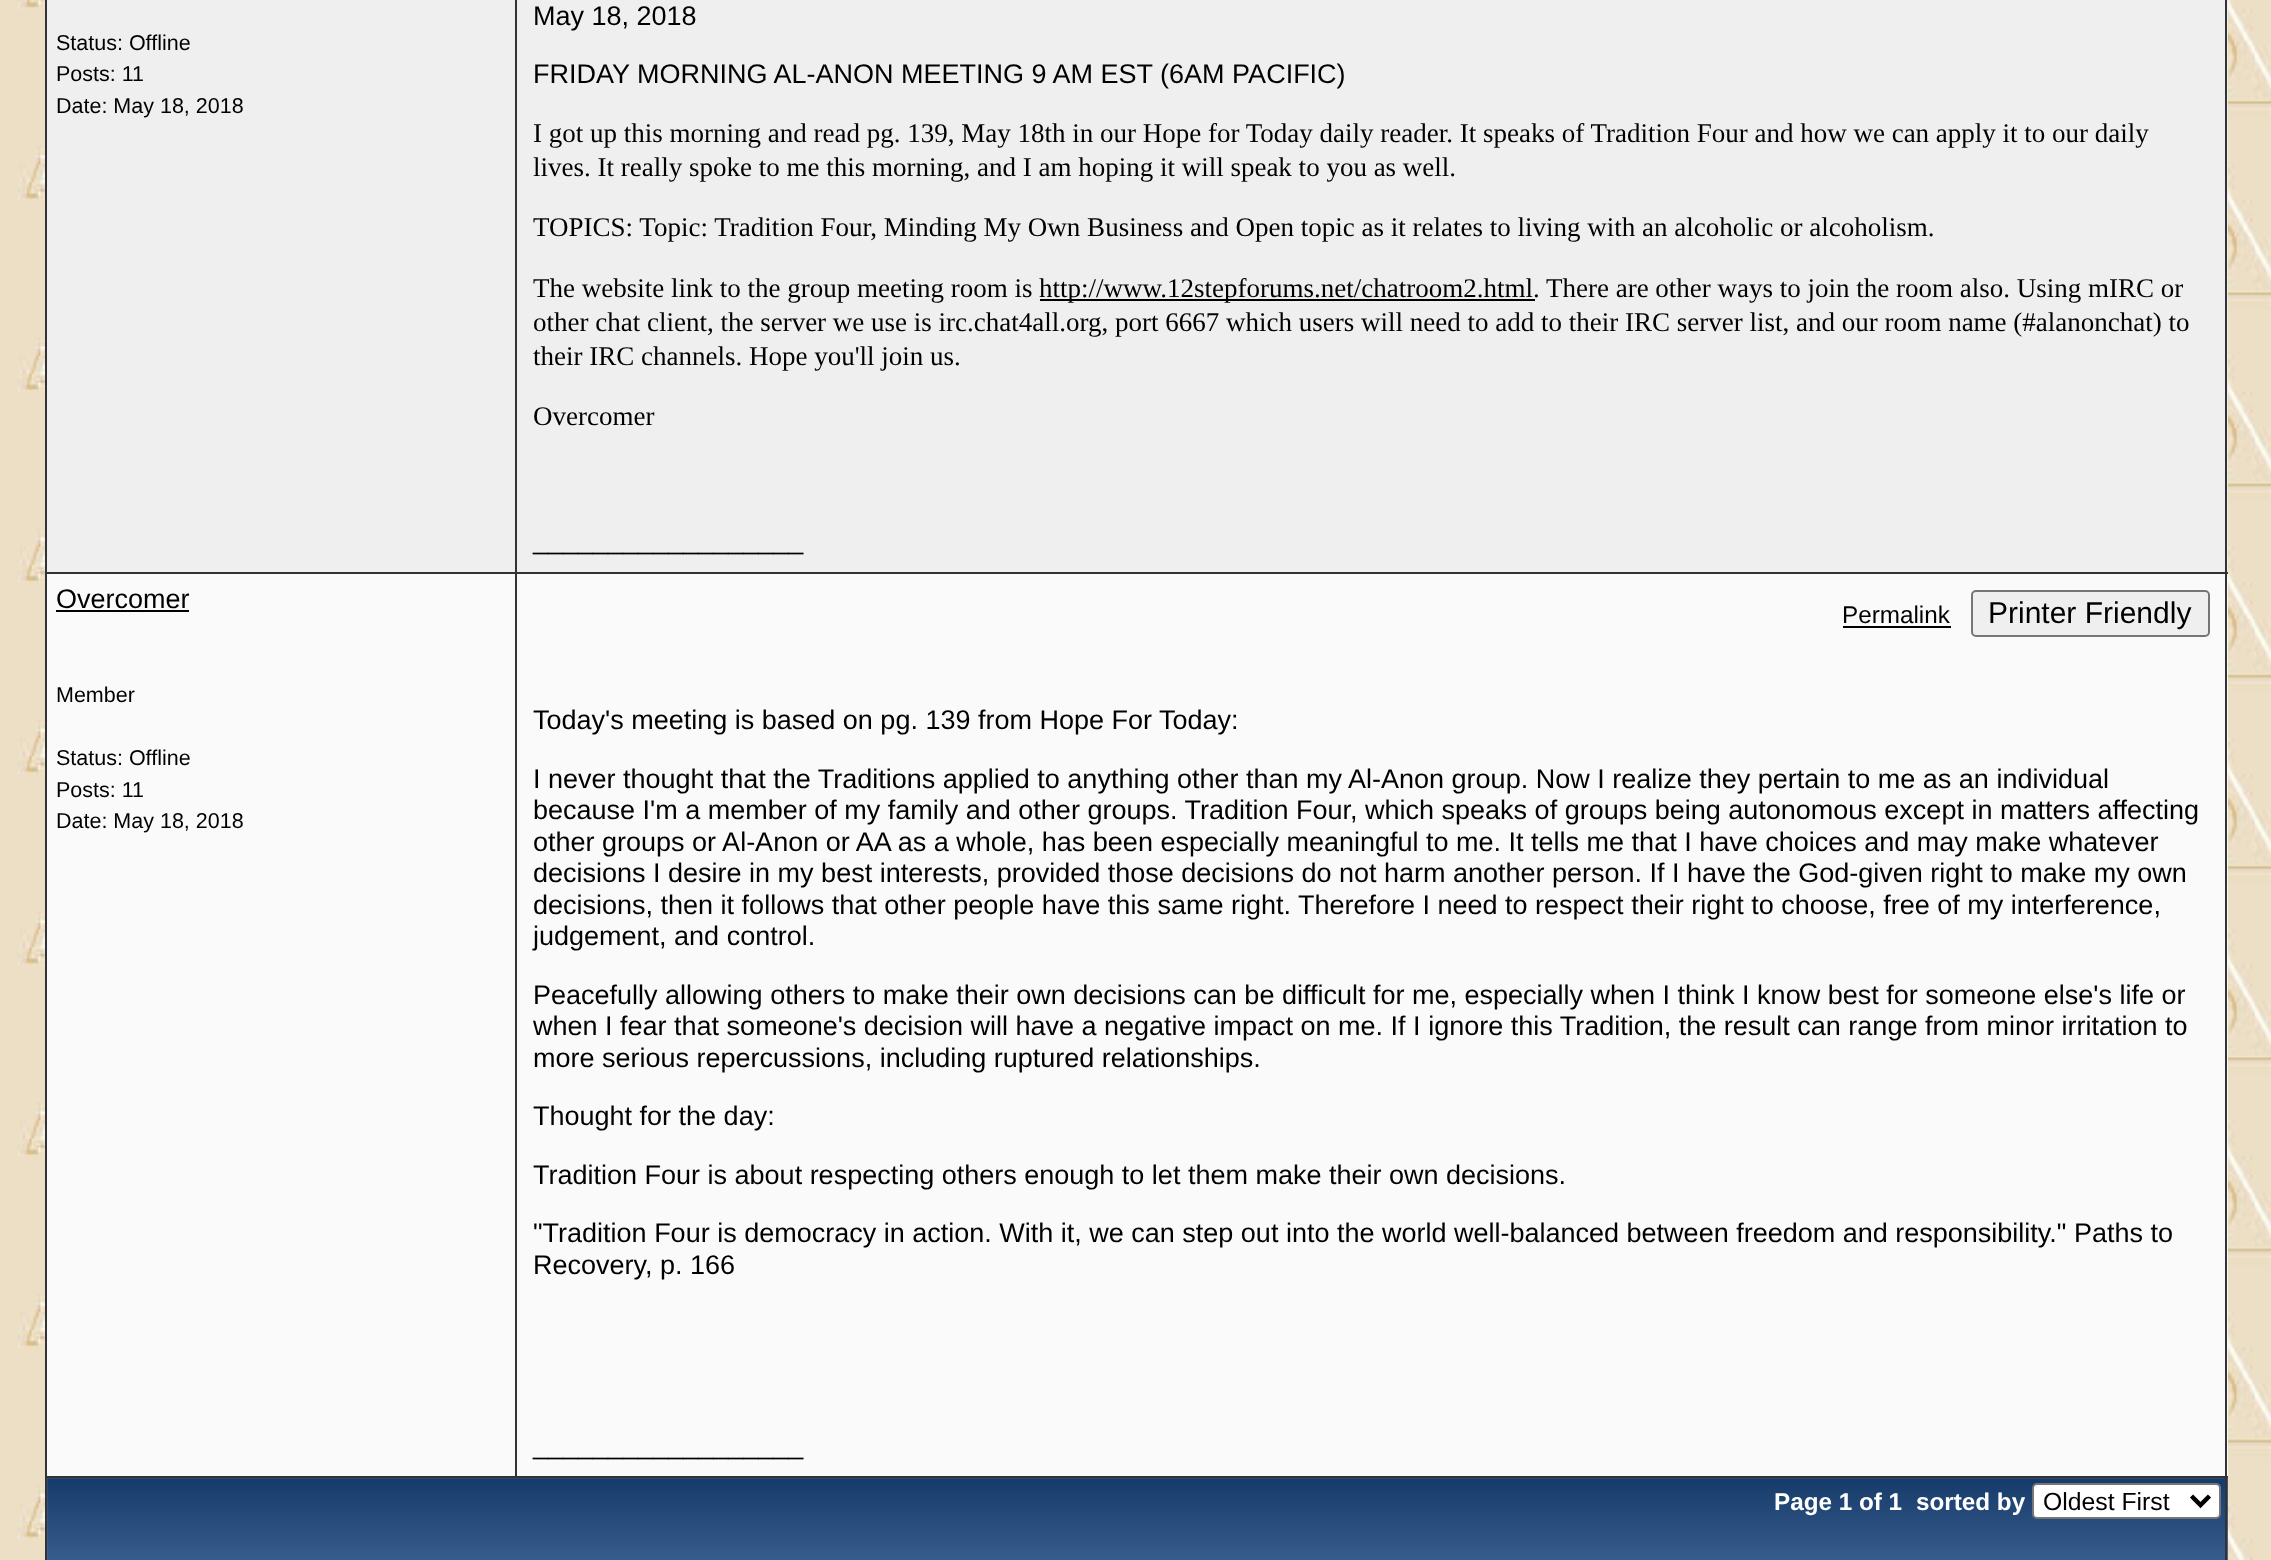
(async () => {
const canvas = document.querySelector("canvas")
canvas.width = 2271
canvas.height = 1560
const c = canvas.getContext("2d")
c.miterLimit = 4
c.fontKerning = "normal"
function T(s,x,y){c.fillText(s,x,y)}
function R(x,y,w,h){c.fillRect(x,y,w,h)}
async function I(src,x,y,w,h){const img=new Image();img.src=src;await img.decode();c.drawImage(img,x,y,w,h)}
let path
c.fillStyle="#fff"
R(0,0,2271,1560)
await I("1.png",0,0,2271,1560)
c.fillStyle="#efefef"
R(47,0,2181,572)
c.fillStyle="#fafafa"
R(47,574,2181,902)
c.fillStyle="#5a76a5"
R(47,1478,2181,82)
await I("2.png",47,1478,2181,82)
c.fillStyle="#333335"
R(2225,0,2,1560)
R(45,0,2,1560)
c.font="21.5px Liberation Sans"
c.fillStyle="#000"
T("Status: Offline",56,50)
T("Posts: 11",56,81)
T("Date: May 18, 2018",56,113)
c.fillStyle="#333335"
R(515,572,1713,2)
R(45,1476,2183,2)
R(515,572,2,906)
R(45,572,473,2)
R(515,0,2,574)
c.font="27px Liberation Sans"
c.fillStyle="#000"
T("May 18, 2018",533,25)
T("FRIDAY MORNING AL-ANON MEETING 9 AM EST (6AM PACIFIC)",533,83)
c.font="27px Liberation Serif"
T("I got up this morning and read pg. 139, May 18th in our Hope for Today daily reader. It speaks of Tradition Four and how we can apply it to our daily",533,142)
T("lives. It really spoke to me this morning, and I am hoping it will speak to you as well.",533,176)
T("TOPICS: Topic: Tradition Four, Minding My Own Business and Open topic as it relates to living with an alcoholic or alcoholism.",533,236)
T("The website link to the group meeting room is",533,297)
R(1040,299,495,2)
T("http://www.12stepforums.net/chatroom2.html. There are other ways to join the room also. Using mIRC or",1039,297)
T("other chat client, the server we use is irc.chat4all.org, port 6667 which users will need to add to their IRC server list, and our room name (#alanonchat) to",533,331)
T("their IRC channels. Hope you'll join us.",533,365)
T("Overcomer",533,425)
c.font="27px Liberation Sans"
T("__________________",533,549)
T("Overcomer",56,608)
R(56,610,133,2)
c.font="21.5px Liberation Sans"
T("Member",56,702)
T("Status: Offline",56,765)
T("Posts: 11",56,797)
T("Date: May 18, 2018",56,828)
c.font="24.25px Liberation Sans"
T("Permalink",1842,623)
R(1843,626,108,2)
c.fillStyle="#efefef"
c.beginPath()
c.roundRect(1972,591,237,45,4)
c.fill()
c.strokeStyle="#767676"
c.lineWidth=2
c.stroke()
c.font="30px Liberation Sans"
c.fillStyle="#000"
T("Printer Friendly",1988,623)
c.font="27px Liberation Sans"
T("Today's meeting is based on pg. 139 from Hope For Today:",533,729)
T("I never thought that the Traditions applied to anything other than my Al-Anon group. Now I realize they pertain to me as an individual",533,788)
T("because I'm a member of my family and other groups. Tradition Four, which speaks of groups being autonomous except in matters affecting",533,819)
T("other groups or Al-Anon or AA as a whole, has been especially meaningful to me. It tells me that I have choices and may make whatever",533,851)
T("decisions I desire in my best interests, provided those decisions do not harm another person. If I have the God-given right to make my own",533,882)
T("decisions, then it follows that other people have this same right. Therefore I need to respect their right to choose, free of my interference,",533,914)
T("judgement, and control.",533,945)
T("Peacefully allowing others to make their own decisions can be difficult for me, especially when I think I know best for someone else's life or",533,1004)
T("when I fear that someone's decision will have a negative impact on me. If I ignore this Tradition, the result can range from minor irritation to",533,1035)
T("more serious repercussions, including ruptured relationships.",533,1067)
T("Thought for the day:",533,1125)
T("Tradition Four is about respecting others enough to let them make their own decisions.",533,1184)
T("\"Tradition Four is democracy in action. With it, we can step out into the world well-balanced between freedom and responsibility.\" Paths to",533,1242)
T("Recovery, p. 166",533,1274)
T("__________________",533,1454)
c.font="bold 24.25px Liberation Sans"
c.fillStyle="#fff"
T("Page 1 of 1",1774,1510)
T("sorted by",1916,1510)
c.beginPath()
c.roundRect(2033,1484,187,34,4)
c.fill()
c.stroke()
path = new Path2D("M2191.5 1496l9 9l9-9")
c.strokeStyle="#000"
c.lineWidth=4.5
c.stroke(path)
c.font="24.75px Liberation Sans"
c.fillStyle="#000"
T("Oldest First",2043,1510)
})()
